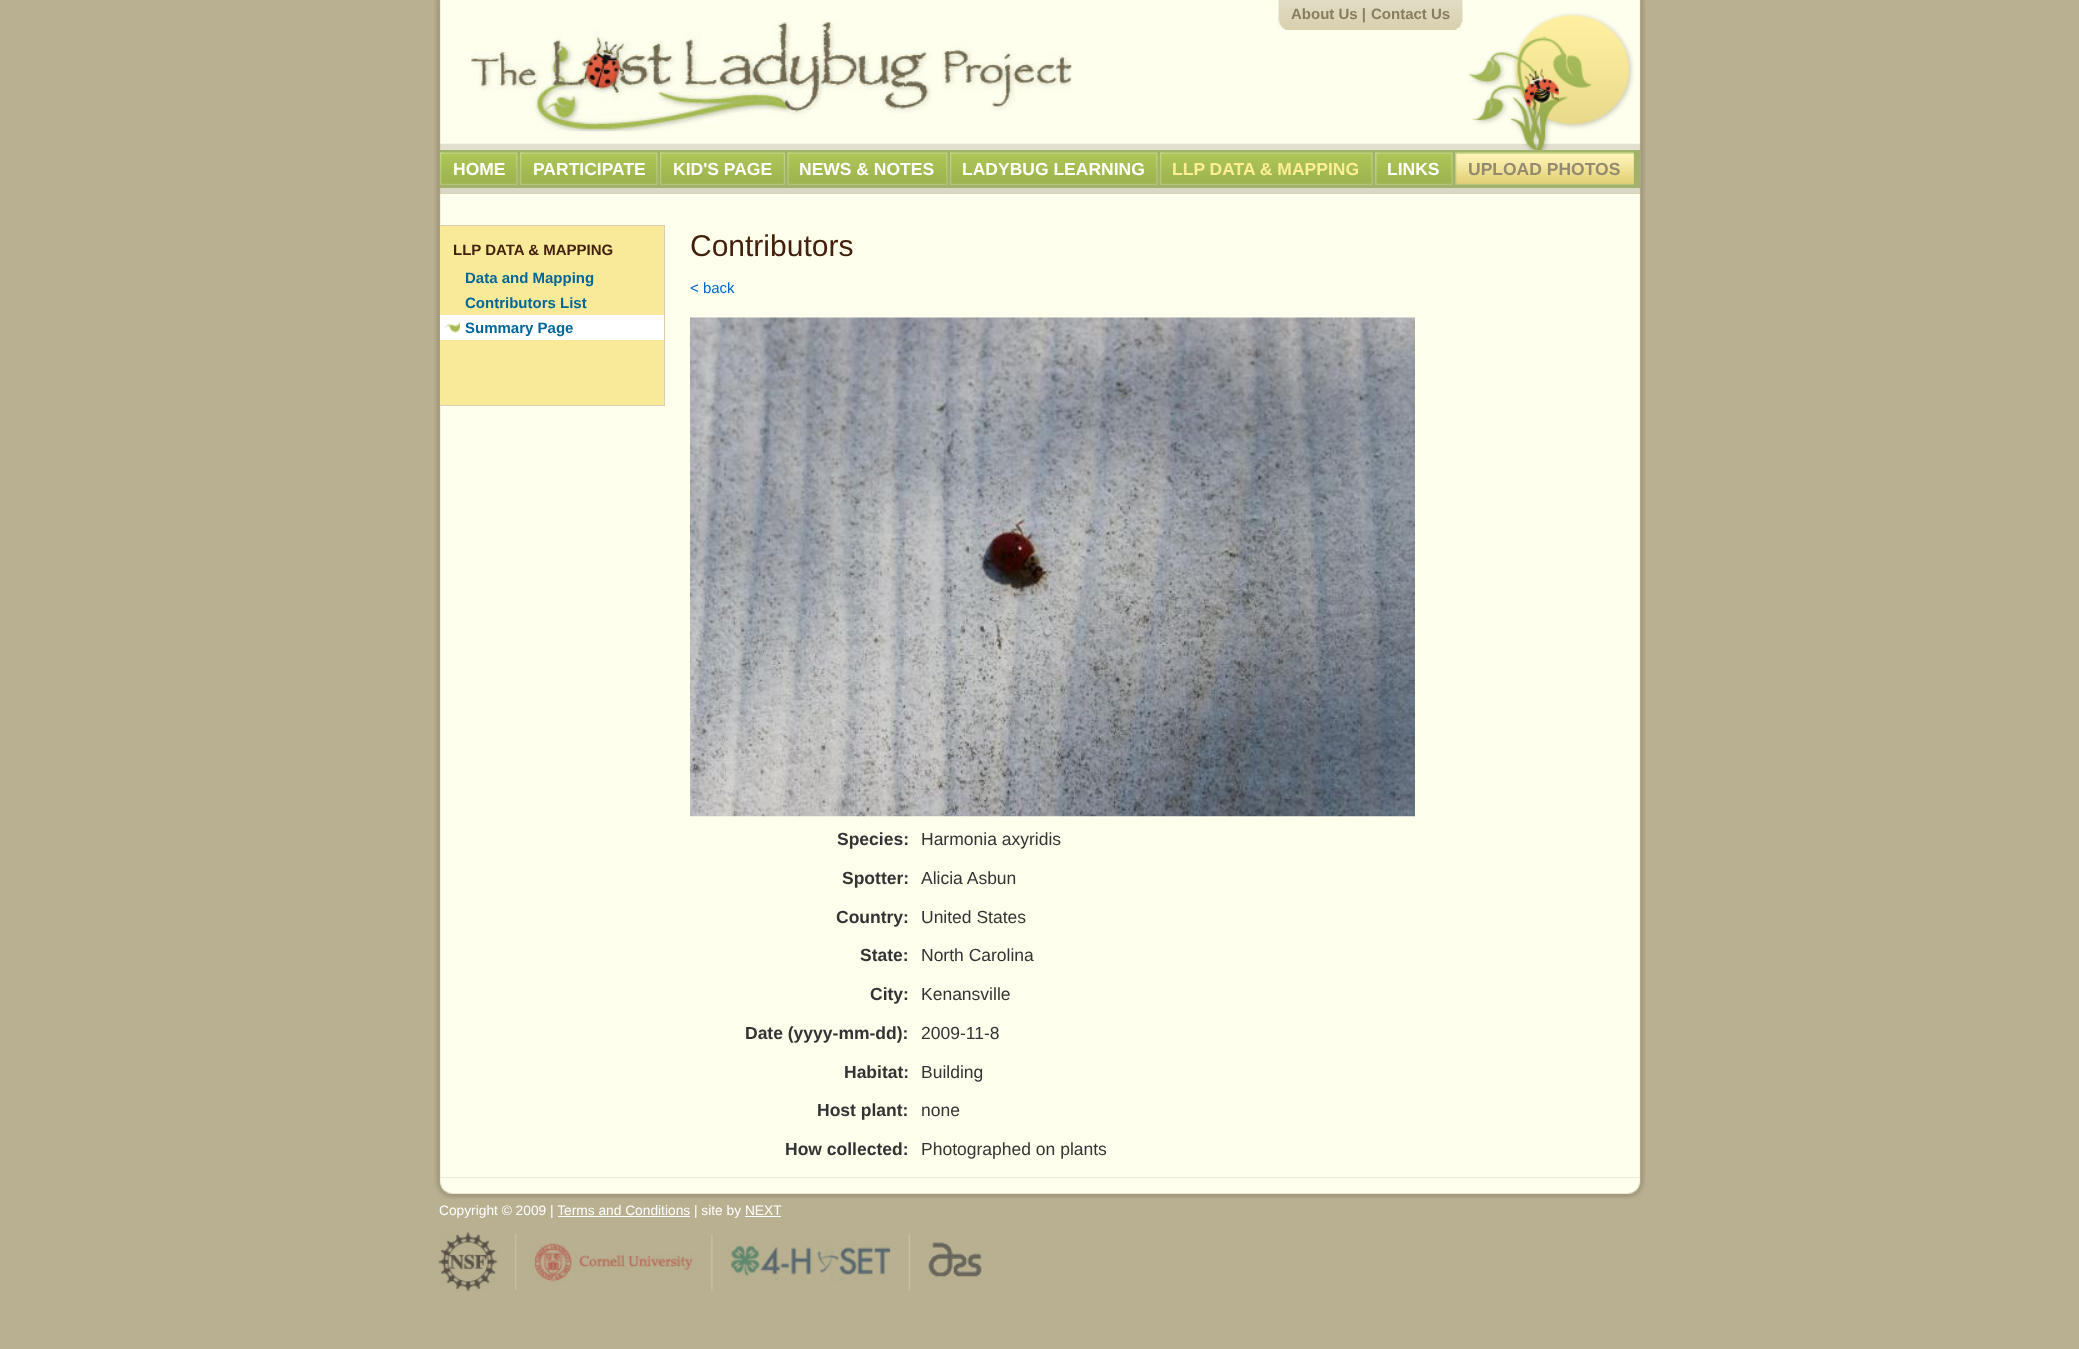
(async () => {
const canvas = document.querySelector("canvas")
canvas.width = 2079
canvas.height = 1349
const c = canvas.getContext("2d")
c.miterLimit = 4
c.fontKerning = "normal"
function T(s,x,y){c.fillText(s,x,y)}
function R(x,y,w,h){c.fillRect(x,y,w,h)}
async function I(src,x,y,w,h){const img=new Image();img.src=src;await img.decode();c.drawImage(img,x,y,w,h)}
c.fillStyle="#b8b090"
R(0,0,2079,1349)
await I("19.png",434,1177,1212,22)
await I("16.png",434,193,1212,985)
await I("1.png",434,0,1212,194)
await I("2.png",1278,0,185,30)
await I("3.png",1278,0,8,30)
c.font="bold 15px Liberation Sans"
c.fillStyle="#887e5f"
T("About Us |",1291,19)
T("Contact Us",1371,19)
await I("4.png",471,21,601,111)
c.fillStyle="#a3b26b"
R(440,150,1200,38)
await I("5.png",440,152,78,33)
await I("6.png",440,152,4,32)
c.font="bold 17.5px Liberation Sans"
c.fillStyle="#fff"
T("HOME",453,175)
await I("7.png",520,152,138,33)
await I("6.png",520,152,4,32)
T("PARTICIPATE",533,175)
await I("8.png",660,152,125,33)
await I("6.png",660,152,4,32)
T("KID'S PAGE",673,175)
await I("9.png",787,152,161,33)
await I("10.png",787,152,4,33)
T("NEWS & NOTES",799,175)
await I("11.png",950,152,208,33)
await I("6.png",950,152,4,32)
T("LADYBUG LEARNING",962,175)
await I("12.png",1160,152,213,33)
await I("6.png",1160,152,4,32)
c.fillStyle="#ffee96"
T("LLP DATA & MAPPING",1172,175)
await I("5.png",1375,152,78,33)
await I("13.png",1375,152,5,32)
c.fillStyle="#fff"
T("LINKS",1387,175)
await I("14.png",1455,152,179,33)
await I("15.png",1455,152,179,32)
c.fillStyle="#948a6f"
T("UPLOAD PHOTOS",1468,175)
c.fillStyle="#f9ea9a"
R(440,226,224,179)
c.fillStyle="#d9d0af"
R(440,225,225,1)
R(664,225,1,181)
R(440,405,225,1)
c.font="bold 15px Liberation Sans"
c.fillStyle="#43200c"
T("LLP DATA & MAPPING",453,255)
c.fillStyle="#069"
T("Data and Mapping",465,283)
T("Contributors List",465,308)
c.fillStyle="#fff"
R(440,315,224,25)
await I("17.png",445,322,15,11)
c.fillStyle="#069"
T("Summary Page",465,333)
c.font="30px Liberation Sans"
c.fillStyle="#43200c"
T("Contributors",690,256)
c.font="15px Liberation Sans"
c.fillStyle="#06c"
T("< back",690,293)
await I("18.png",690,317,725,500)
c.font="bold 17.5px Liberation Sans"
c.fillStyle="#333"
T("Species:",837,845)
c.font="17.5px Liberation Sans"
T("Harmonia axyridis",921,845)
c.font="bold 17.5px Liberation Sans"
T("Spotter:",842,884)
c.font="17.5px Liberation Sans"
T("Alicia Asbun",921,884)
c.font="bold 17.5px Liberation Sans"
T("Country:",836,923)
c.font="17.5px Liberation Sans"
T("United States",921,923)
c.font="bold 17.5px Liberation Sans"
T("State:",860,961)
c.font="17.5px Liberation Sans"
T("North Carolina",921,961)
c.font="bold 17.5px Liberation Sans"
T("City:",870,1000)
c.font="17.5px Liberation Sans"
T("Kenansville",921,1000)
c.font="bold 17.5px Liberation Sans"
T("Date (yyyy-mm-dd):",745,1039)
c.font="17.5px Liberation Sans"
T("2009-11-8",921,1039)
c.font="bold 17.5px Liberation Sans"
T("Habitat:",844,1078)
c.font="17.5px Liberation Sans"
T("Building",921,1078)
c.font="bold 17.5px Liberation Sans"
T("Host plant:",817,1116)
c.font="17.5px Liberation Sans"
T("none",921,1116)
c.font="bold 17.5px Liberation Sans"
T("How collected:",785,1155)
c.font="17.5px Liberation Sans"
T("Photographed on plants",921,1155)
c.font="13.75px Liberation Sans"
c.fillStyle="#fff"
T("Copyright © 2009 | Terms and Conditions | site by NEXT",439,1215)
R(558,1216,132,1)
R(745,1216,36,1)
await I("20.png",438,1232,544,60)
})()
